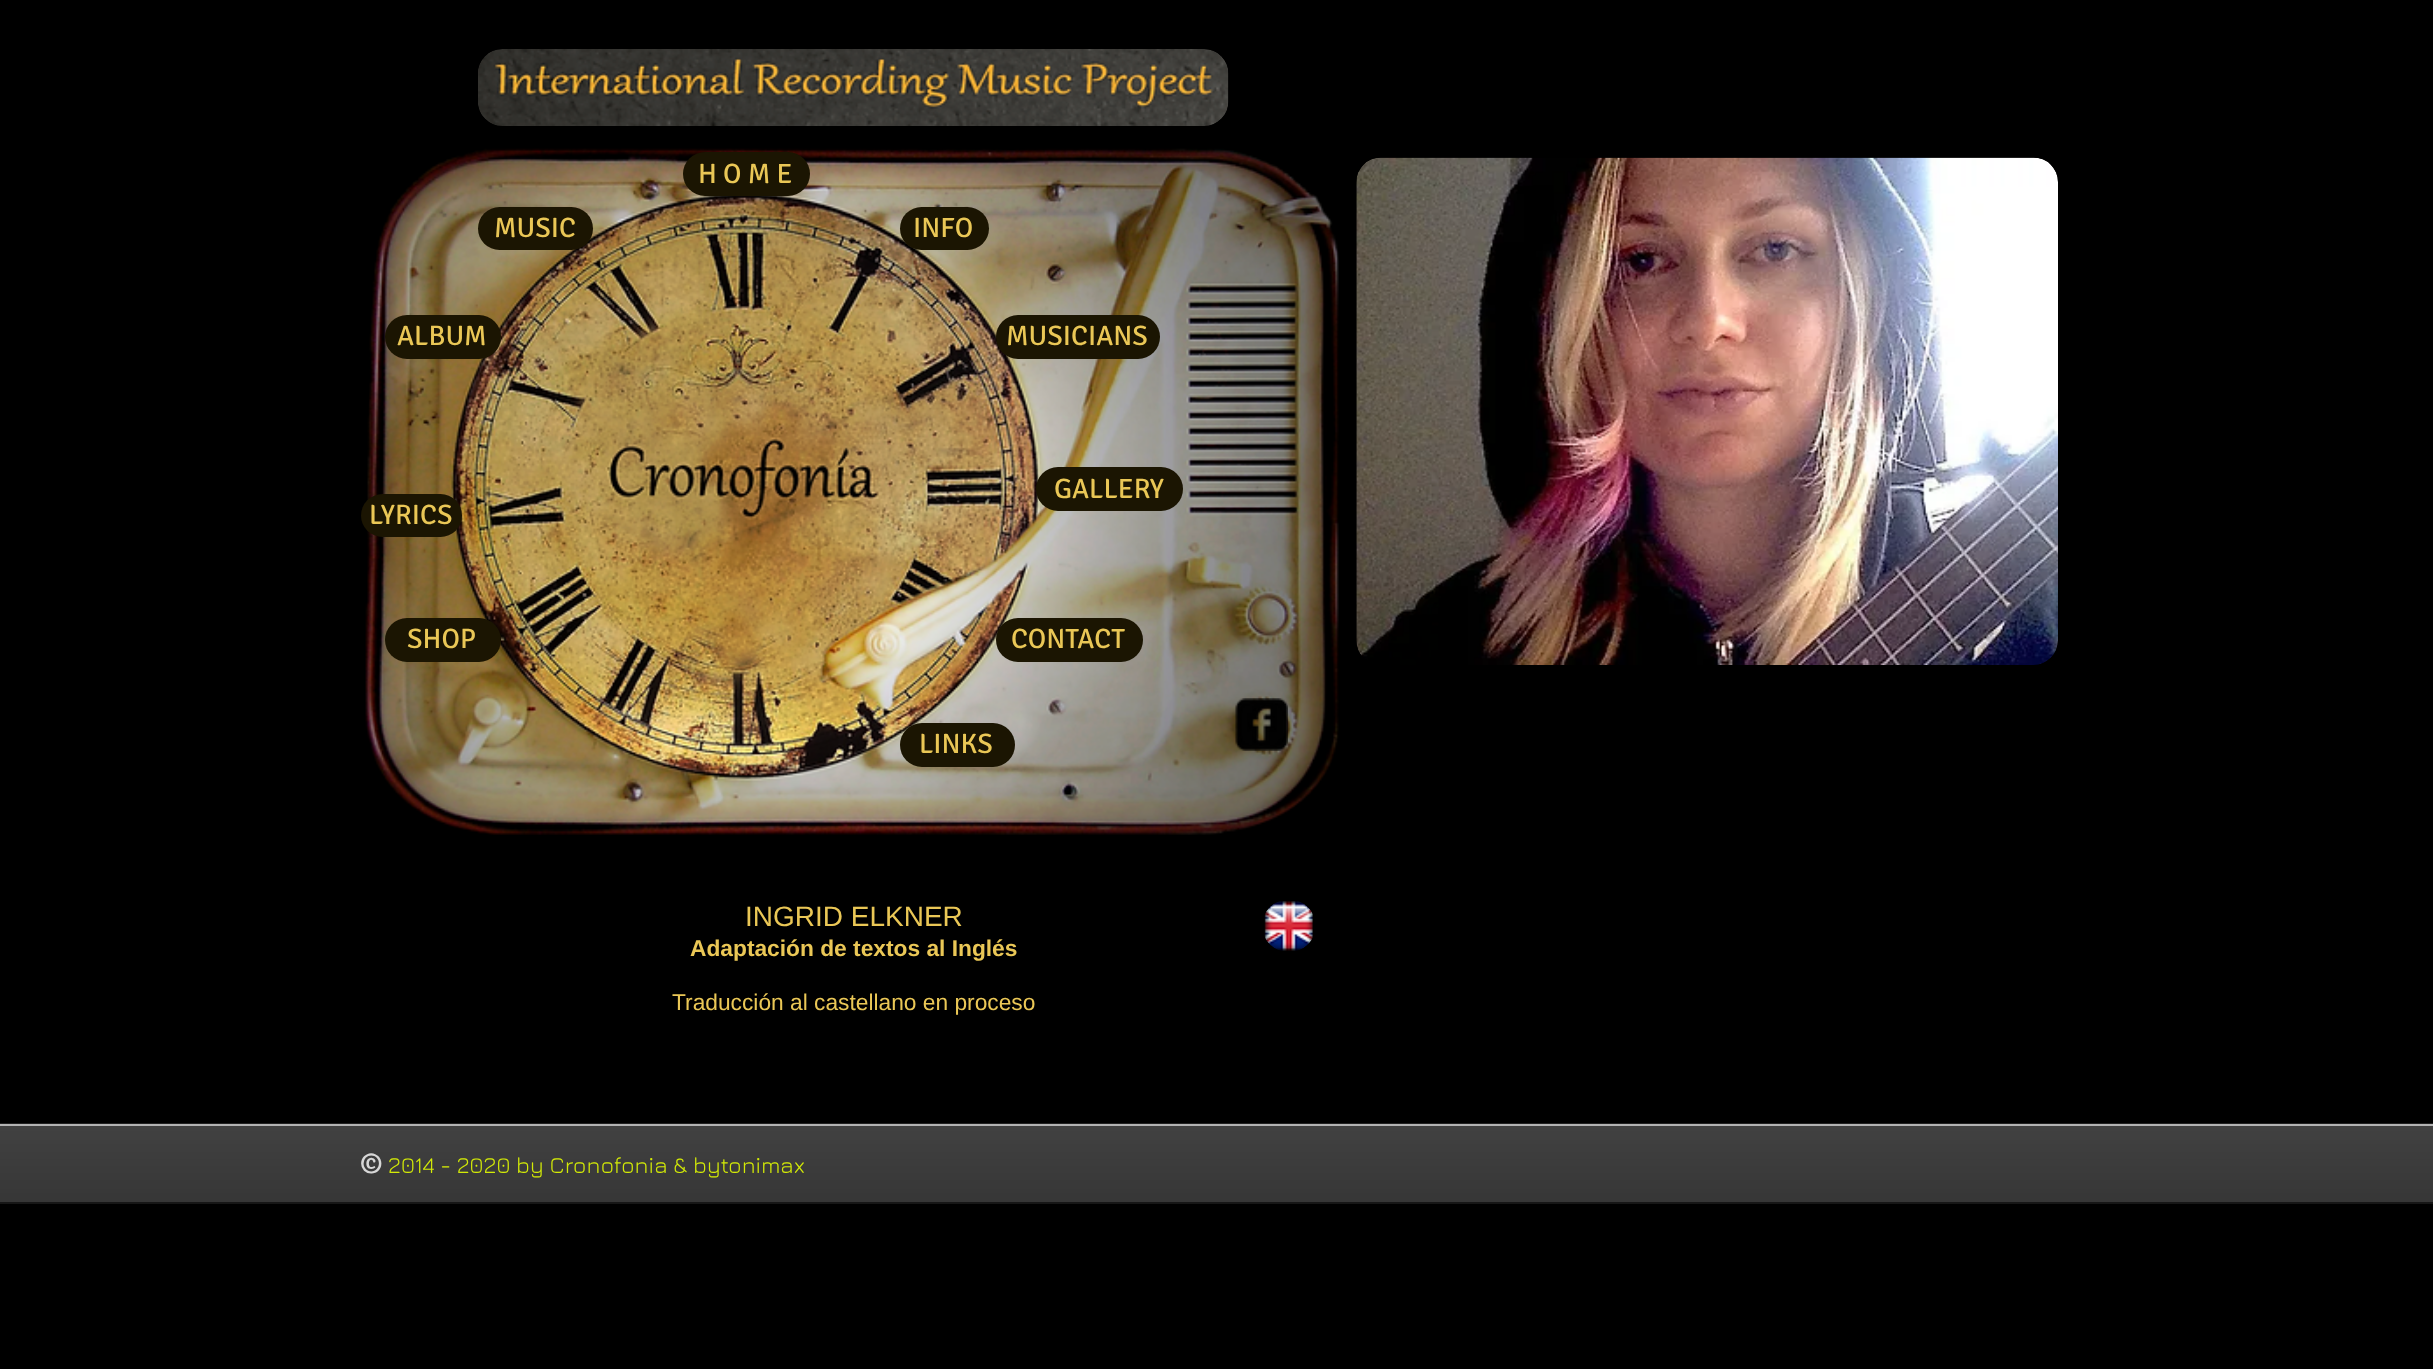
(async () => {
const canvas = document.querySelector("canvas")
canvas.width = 2433
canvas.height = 1369
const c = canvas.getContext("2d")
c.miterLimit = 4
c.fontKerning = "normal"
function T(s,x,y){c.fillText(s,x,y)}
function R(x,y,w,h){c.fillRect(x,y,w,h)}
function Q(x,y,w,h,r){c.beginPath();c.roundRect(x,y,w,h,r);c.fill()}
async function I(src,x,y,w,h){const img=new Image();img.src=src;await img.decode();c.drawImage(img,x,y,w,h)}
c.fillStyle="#000"
R(0,0,2433,1369)
await I("1.png",478,49,751,77)
await I("2.png",365,148,974,687)
c.fillStyle="#1b1502"
Q(683,152,127,44,22)
c.font="28px Signika"
c.fillStyle="#eac756"
T("H O M E",698,183)
c.fillStyle="#1b1502"
Q(478,207,115,43,21.5)
c.fillStyle="#eac756"
T("MUSIC",494,237)
c.fillStyle="#1b1502"
Q(900,207,89,43,21.5)
c.fillStyle="#eac756"
T("INFO",913,237)
c.fillStyle="#1b1502"
Q(385,315,116,44,22)
c.fillStyle="#eac756"
T("ALBUM",397,345)
c.fillStyle="#1b1502"
Q(996,315,164,44,22)
c.fillStyle="#eac756"
T("MUSICIANS",1006,345)
c.fillStyle="#1b1502"
Q(1036,467,147,44,22)
c.fillStyle="#eac756"
T("GALLERY",1054,498)
c.fillStyle="#1b1502"
Q(361,494,101,43,21.5)
c.fillStyle="#eac756"
T("LYRICS",369,524)
c.fillStyle="#1b1502"
Q(385,618,116,44,22)
c.fillStyle="#eac756"
T("SHOP",407,648)
c.fillStyle="#1b1502"
Q(996,618,147,44,22)
c.fillStyle="#eac756"
T("CONTACT",1011,648)
c.fillStyle="#1b1502"
Q(900,723,115,44,22)
c.fillStyle="#eac756"
T("LINKS",919,753)
await I("3.png",1235,698,53,53)
await I("4.png",1356,157,702,508)
c.font="28px Liberation Sans"
T("INGRID ELKNER",745,926)
c.font="bold 22.75px Liberation Sans"
T("Adaptación de textos al Inglés",690,956)
c.font="22.75px Liberation Sans"
T("Traducción al castellano en proceso",672,1010)
await I("5.png",1264,901,49,50)
await I("6.png",0,1123,2433,79)
c.fillStyle="#161616"
R(0,1202,2433,2)
c.fillStyle="#b3b3b3"
R(0,1124,2433,2)
c.font="28px Signika"
c.fillStyle="#d7d7d7"
T("©",360,1173)
c.font="22.75px Jura"
c.fillStyle="#d3ea07"
T("2014 - 2020 by Cronofonia & bytonimax",388,1173)
})()
